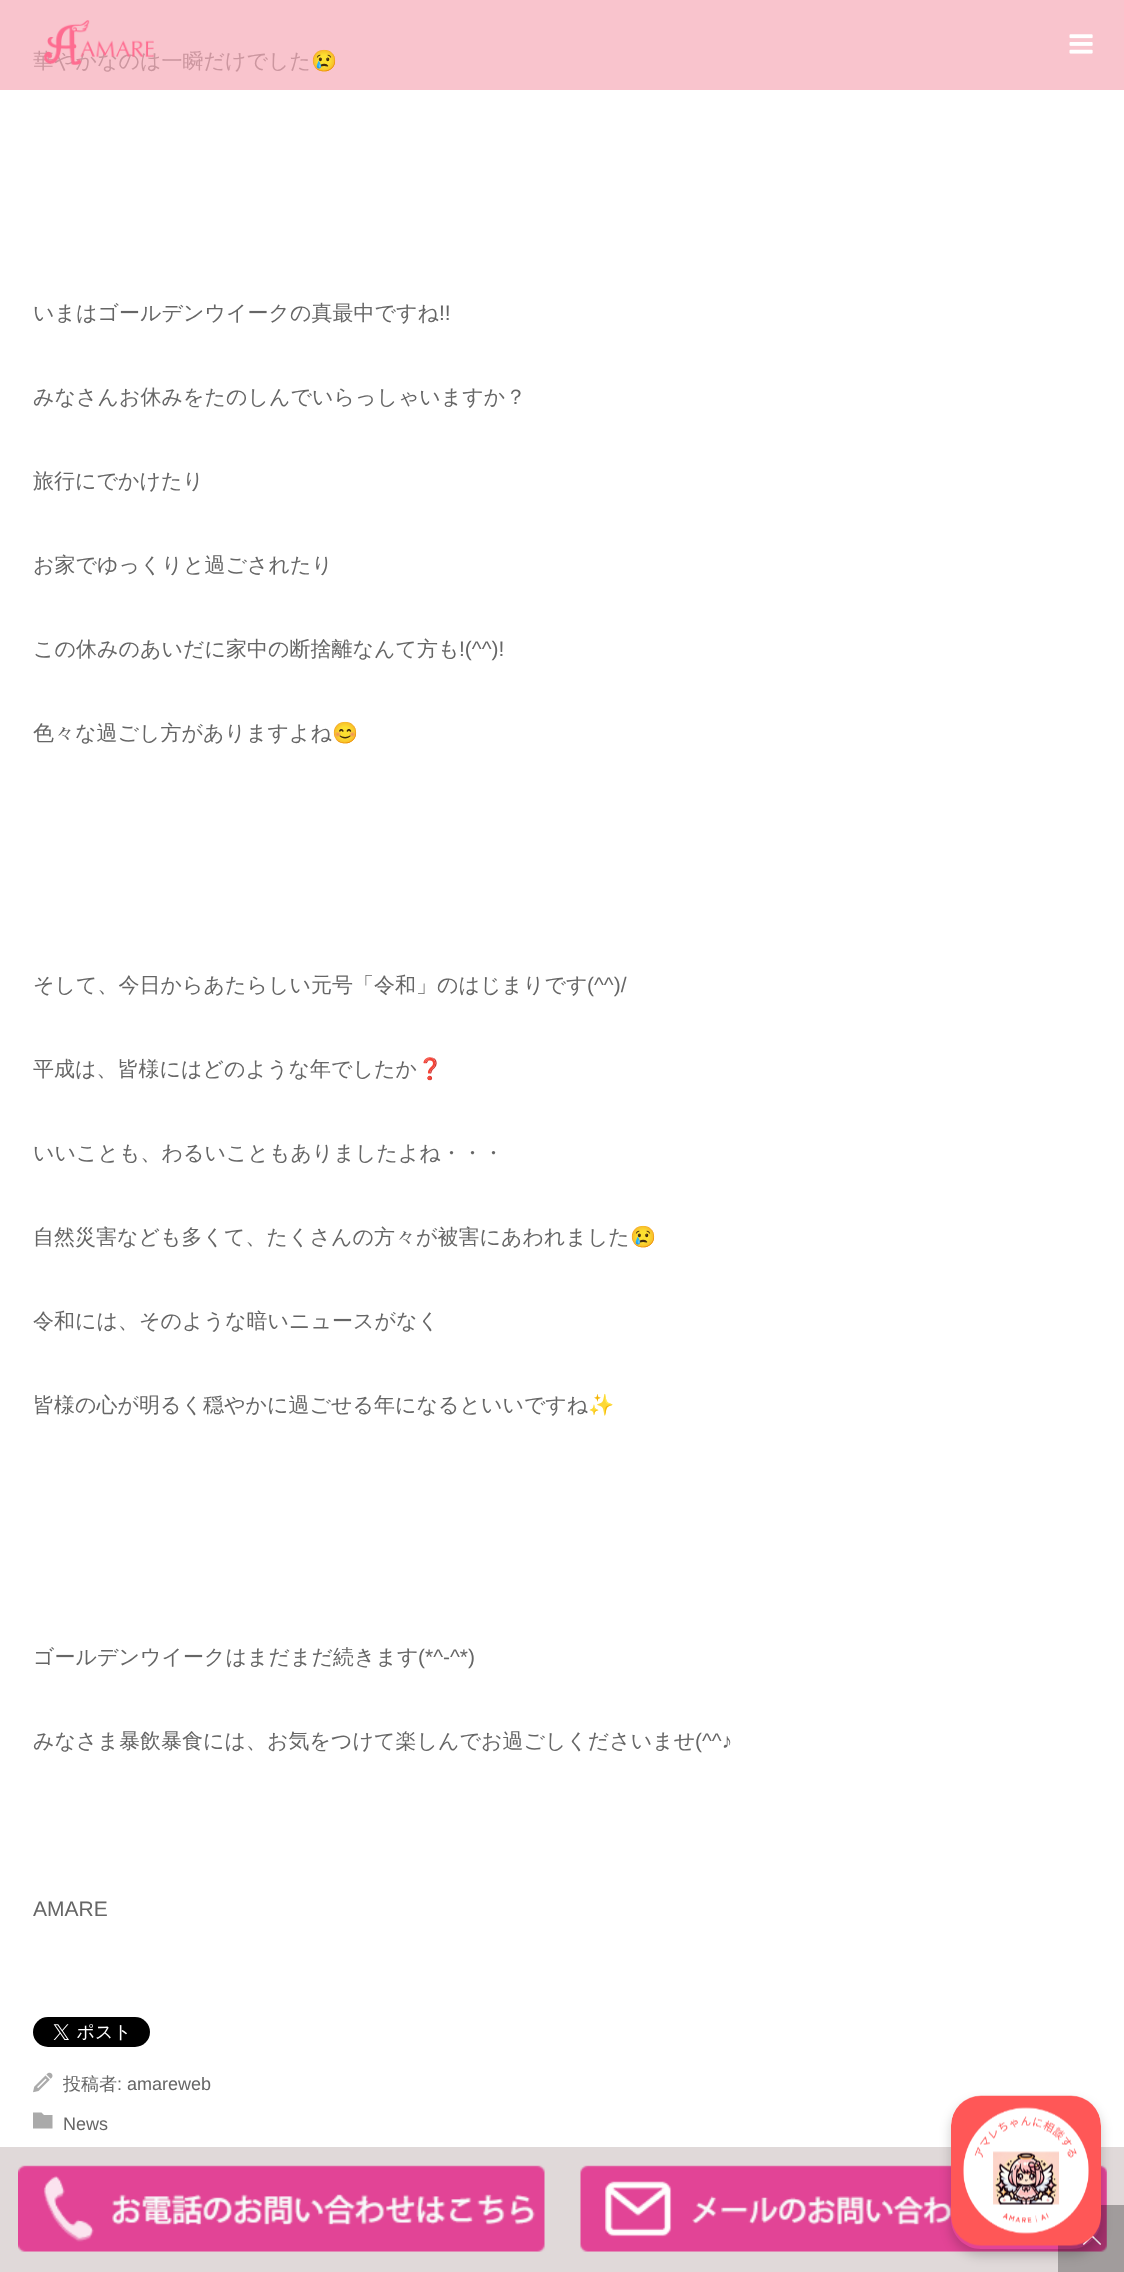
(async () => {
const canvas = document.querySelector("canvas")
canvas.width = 1124
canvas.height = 2272
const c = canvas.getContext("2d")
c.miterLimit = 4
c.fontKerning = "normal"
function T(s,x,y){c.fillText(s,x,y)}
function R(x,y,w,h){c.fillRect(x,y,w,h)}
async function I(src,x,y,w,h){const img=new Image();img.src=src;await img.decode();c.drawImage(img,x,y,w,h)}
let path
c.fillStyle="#fff"
R(0,0,1124,2272)
c.fillStyle="#f9c4cd"
R(0,0,1124,90)
c.font="500 21px WenQuanYi Zen Hei"
c.fillStyle="#cb969f"
T("華やかなのは一瞬だけでした",33,68)
await I("1.png",43,20,111,45)
await I("2.png",1069,34,24,20)
c.font="21px Noto Color Emoji"
T("😢",311,68)
c.font="500 21px WenQuanYi Zen Hei"
c.fillStyle="#666"
T("いまはゴールデンウイークの真最中ですね",33,320)
c.font="21px Liberation Sans"
T("!!",439,320)
c.font="500 21px WenQuanYi Zen Hei"
T("みなさんお休みをたのしんでいらっしゃいますか？",33,404)
T("旅行にでかけたり",33,488)
T("お家でゆっくりと過ごされたり",33,572)
T("この休みのあいだに家中の断捨離なんて方も",33,656)
c.font="21px Liberation Sans"
T("!(^^)!",459,656)
c.font="500 21px WenQuanYi Zen Hei"
T("色々な過ごし方がありますよね",33,740)
c.font="21px Noto Color Emoji"
T("😊",332,740)
c.font="500 21px WenQuanYi Zen Hei"
T("そして、今日からあたらしい元号「令和」のはじまりです",33,992)
c.font="21px Liberation Sans"
T("(^^)/",587,992)
c.font="500 21px WenQuanYi Zen Hei"
T("平成は、皆様にはどのような年でしたか",33,1076)
c.font="21px Noto Color Emoji"
T("❓",417,1076)
c.font="500 21px WenQuanYi Zen Hei"
T("いいことも、わるいこともありましたよね・・・",33,1160)
T("自然災害なども多くて、たくさんの方々が被害にあわれました",33,1244)
c.font="21px Noto Color Emoji"
T("😢",630,1244)
c.font="500 21px WenQuanYi Zen Hei"
T("令和には、そのような暗いニュースがなく",33,1328)
T("皆様の心が明るく穏やかに過ごせる年になるといいですね",33,1412)
c.font="21px Noto Color Emoji"
T("✨",588,1412)
c.font="500 21px WenQuanYi Zen Hei"
T("ゴールデンウイークはまだまだ続きます",33,1664)
c.font="21px Liberation Sans"
T("(*^-^*)",418,1664)
c.font="500 21px WenQuanYi Zen Hei"
T("みなさま暴飲暴食には、お気をつけて楽しんでお過ごしくださいませ",33,1748)
c.font="21px Liberation Sans"
T("(^^♪",695,1748)
T("AMARE",33,1916)
await I("3.png",33,2017,117,30)
await I("4.png",33,2072,20,21)
c.font="500 18px WenQuanYi Zen Hei"
T("投稿者",63,2090)
c.font="18px Liberation Sans"
T(": amareweb",117,2090)
c.fillStyle="#aaa"
path = new Path2D("M41.5 2112.5l2.5 2.5h8.5v13.5h-19.5v-16z")
c.fill(path)
c.fillStyle="#666"
T("News",63,2130)
c.fillStyle="#e0d9d9"
R(0,2147,1124,125)
await I("8.png",580,2165,527,87)
c.fillStyle="#00000047"
R(1058,2205,66,67)
await I("5.png",1083,2235,18,10)
c.save()
path = new Path2D("M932 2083h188v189h-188zm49 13h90c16.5 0 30 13.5 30 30v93c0 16.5-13.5 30-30 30h-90c-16.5 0-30-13.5-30-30v-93c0-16.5 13.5-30 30-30z")
c.clip(path,"evenodd")
c.fillStyle="#00000033"
c.filter="blur(6px)"
c.beginPath()
c.roundRect(951,2102,150,153,30)
c.fill()
c.filter="none"
c.restore()
await I("6.png",951,2095,150,151)
await I("7.png",18,2165,527,87)
})()
